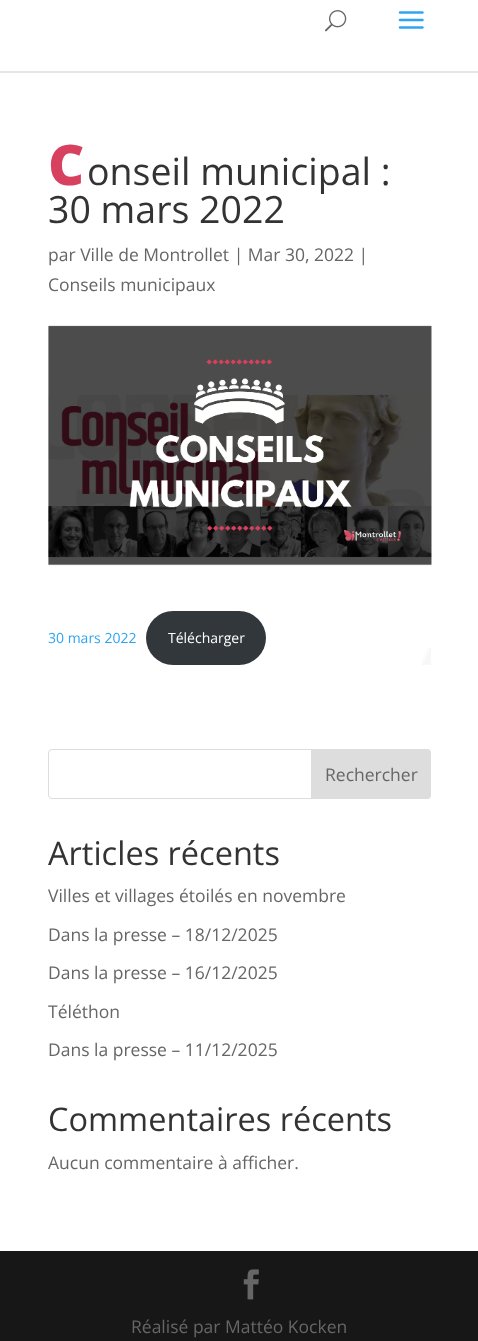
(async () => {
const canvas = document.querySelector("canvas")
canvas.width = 478
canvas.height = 1341
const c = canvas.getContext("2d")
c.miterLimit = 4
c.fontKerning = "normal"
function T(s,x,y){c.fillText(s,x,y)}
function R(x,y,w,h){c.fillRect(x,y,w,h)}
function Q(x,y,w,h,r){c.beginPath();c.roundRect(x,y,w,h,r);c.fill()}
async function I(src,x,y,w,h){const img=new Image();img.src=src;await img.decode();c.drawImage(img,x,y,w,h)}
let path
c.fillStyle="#fff"
R(0,0,478,1341)
c.fillStyle="#e6e6e6"
path = new Path2D("M0 71v2h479v-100v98z")
c.fill(path)
await I("1.png",325,10,22,22)
await I("2.png",398,11,26,18)
c.font="900 56px Noto Sans"
c.fillStyle="#d7415f"
T("C",48,185)
c.font="37.5px Open Sans"
c.fillStyle="#333"
T("onseil municipal :",87,185)
T("30 mars 2022",48,223)
c.font="17.5px Open Sans"
c.fillStyle="#666"
T("par Ville de Montrollet | Mar 30, 2022 |",48,261)
T("Conseils municipaux",48,291)
await I("3.png",48,325,384,241)
await I("4.png",422,647,9,18)
c.font="14px Open Sans"
c.fillStyle="#2ea3f2"
T("30 mars 2022",48,643)
c.fillStyle="#32373c"
Q(146,611,120,54,27)
c.fillStyle="#fff"
T("Télécharger",168,643)
c.beginPath()
c.roundRect(48.5,749.5,382,49,3.5)
c.strokeStyle="#ddd"
c.stroke()
c.fillStyle="#ddd"
c.beginPath()
c.roundRect(311.5,749.5,119,49,[0,3.5,3.5,0])
c.fill()
c.stroke()
c.font="17.5px Open Sans"
c.fillStyle="#666"
T("Rechercher",325,781)
c.font="32.5px Open Sans"
c.fillStyle="#333"
T("Articles récents",48,865)
c.font="17.5px Open Sans"
c.fillStyle="#666"
T("Villes et villages étoilés en novembre",48,902)
T("Dans la presse – 18/12/2025",48,941)
T("Dans la presse – 16/12/2025",48,979)
T("Téléthon",48,1018)
T("Dans la presse – 11/12/2025",48,1056)
c.font="32.5px Open Sans"
c.fillStyle="#333"
T("Commentaires récents",48,1131)
c.font="17.5px Open Sans"
c.fillStyle="#666"
T("Aucun commentaire à afficher.",48,1169)
c.fillStyle="#171717"
R(0,1251,478,90)
await I("5.png",243,1269,16,31)
c.fillStyle="#666"
T("Réalisé par Mattéo Kocken",131,1333)
})()
